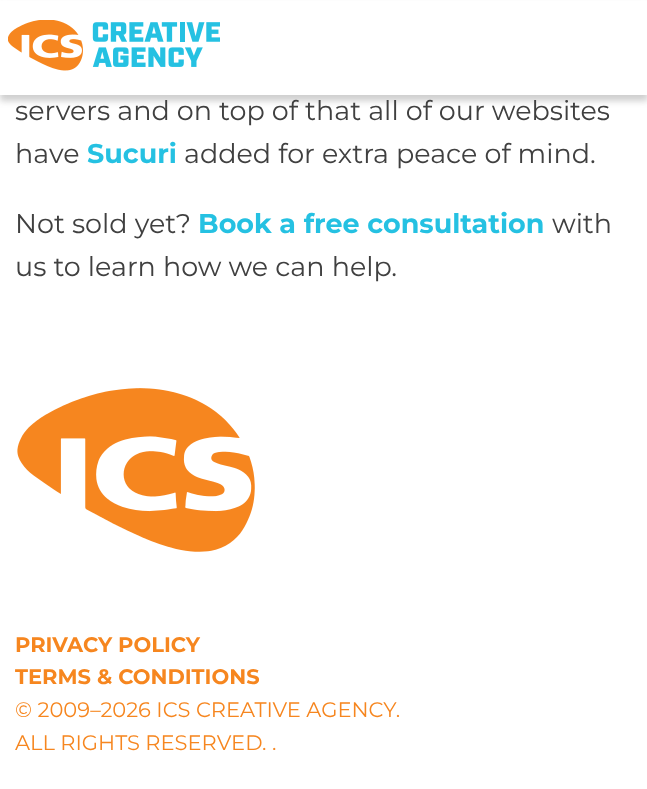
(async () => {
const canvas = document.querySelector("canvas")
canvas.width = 647
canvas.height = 789
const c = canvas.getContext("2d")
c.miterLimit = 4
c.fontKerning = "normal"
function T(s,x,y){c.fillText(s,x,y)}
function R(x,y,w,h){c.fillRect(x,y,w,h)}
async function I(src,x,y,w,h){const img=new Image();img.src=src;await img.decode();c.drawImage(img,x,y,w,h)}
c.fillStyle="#fff"
R(0,0,647,789)
c.fillStyle="#40404040"
c.filter="blur(3px)"
c.beginPath()
c.rect(0,6,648,95)
c.fill()
c.filter="none"
c.fillStyle="#fff"
R(0,1,647,94)
await I("1.png",8,20,212,51)
c.font="27px Montserrat"
c.fillStyle="#404040"
T("servers and on top of that all of our websites",15,120)
T("have",15,163)
c.font="bold 27px Montserrat"
c.fillStyle="#25c1e2"
T("Sucuri",87,163)
c.font="27px Montserrat"
c.fillStyle="#404040"
T("added for extra peace of mind.",184,163)
T("Not sold yet?",15,233)
c.font="bold 27px Montserrat"
c.fillStyle="#25c1e2"
T("Book a free consultation",198,233)
c.font="27px Montserrat"
c.fillStyle="#404040"
T("with",552,233)
T("us to learn how we can help.",15,276)
await I("2.png",17,388,238,164)
c.font="bold 21px Montserrat"
c.fillStyle="#f6861f"
T("PRIVACY POLICY",15,652)
T("TERMS & CONDITIONS",15,684)
c.font="21px Montserrat"
T("© 2009–2026 ICS CREATIVE AGENCY.",15,717)
T("ALL RIGHTS RESERVED. .",15,750)
})()
